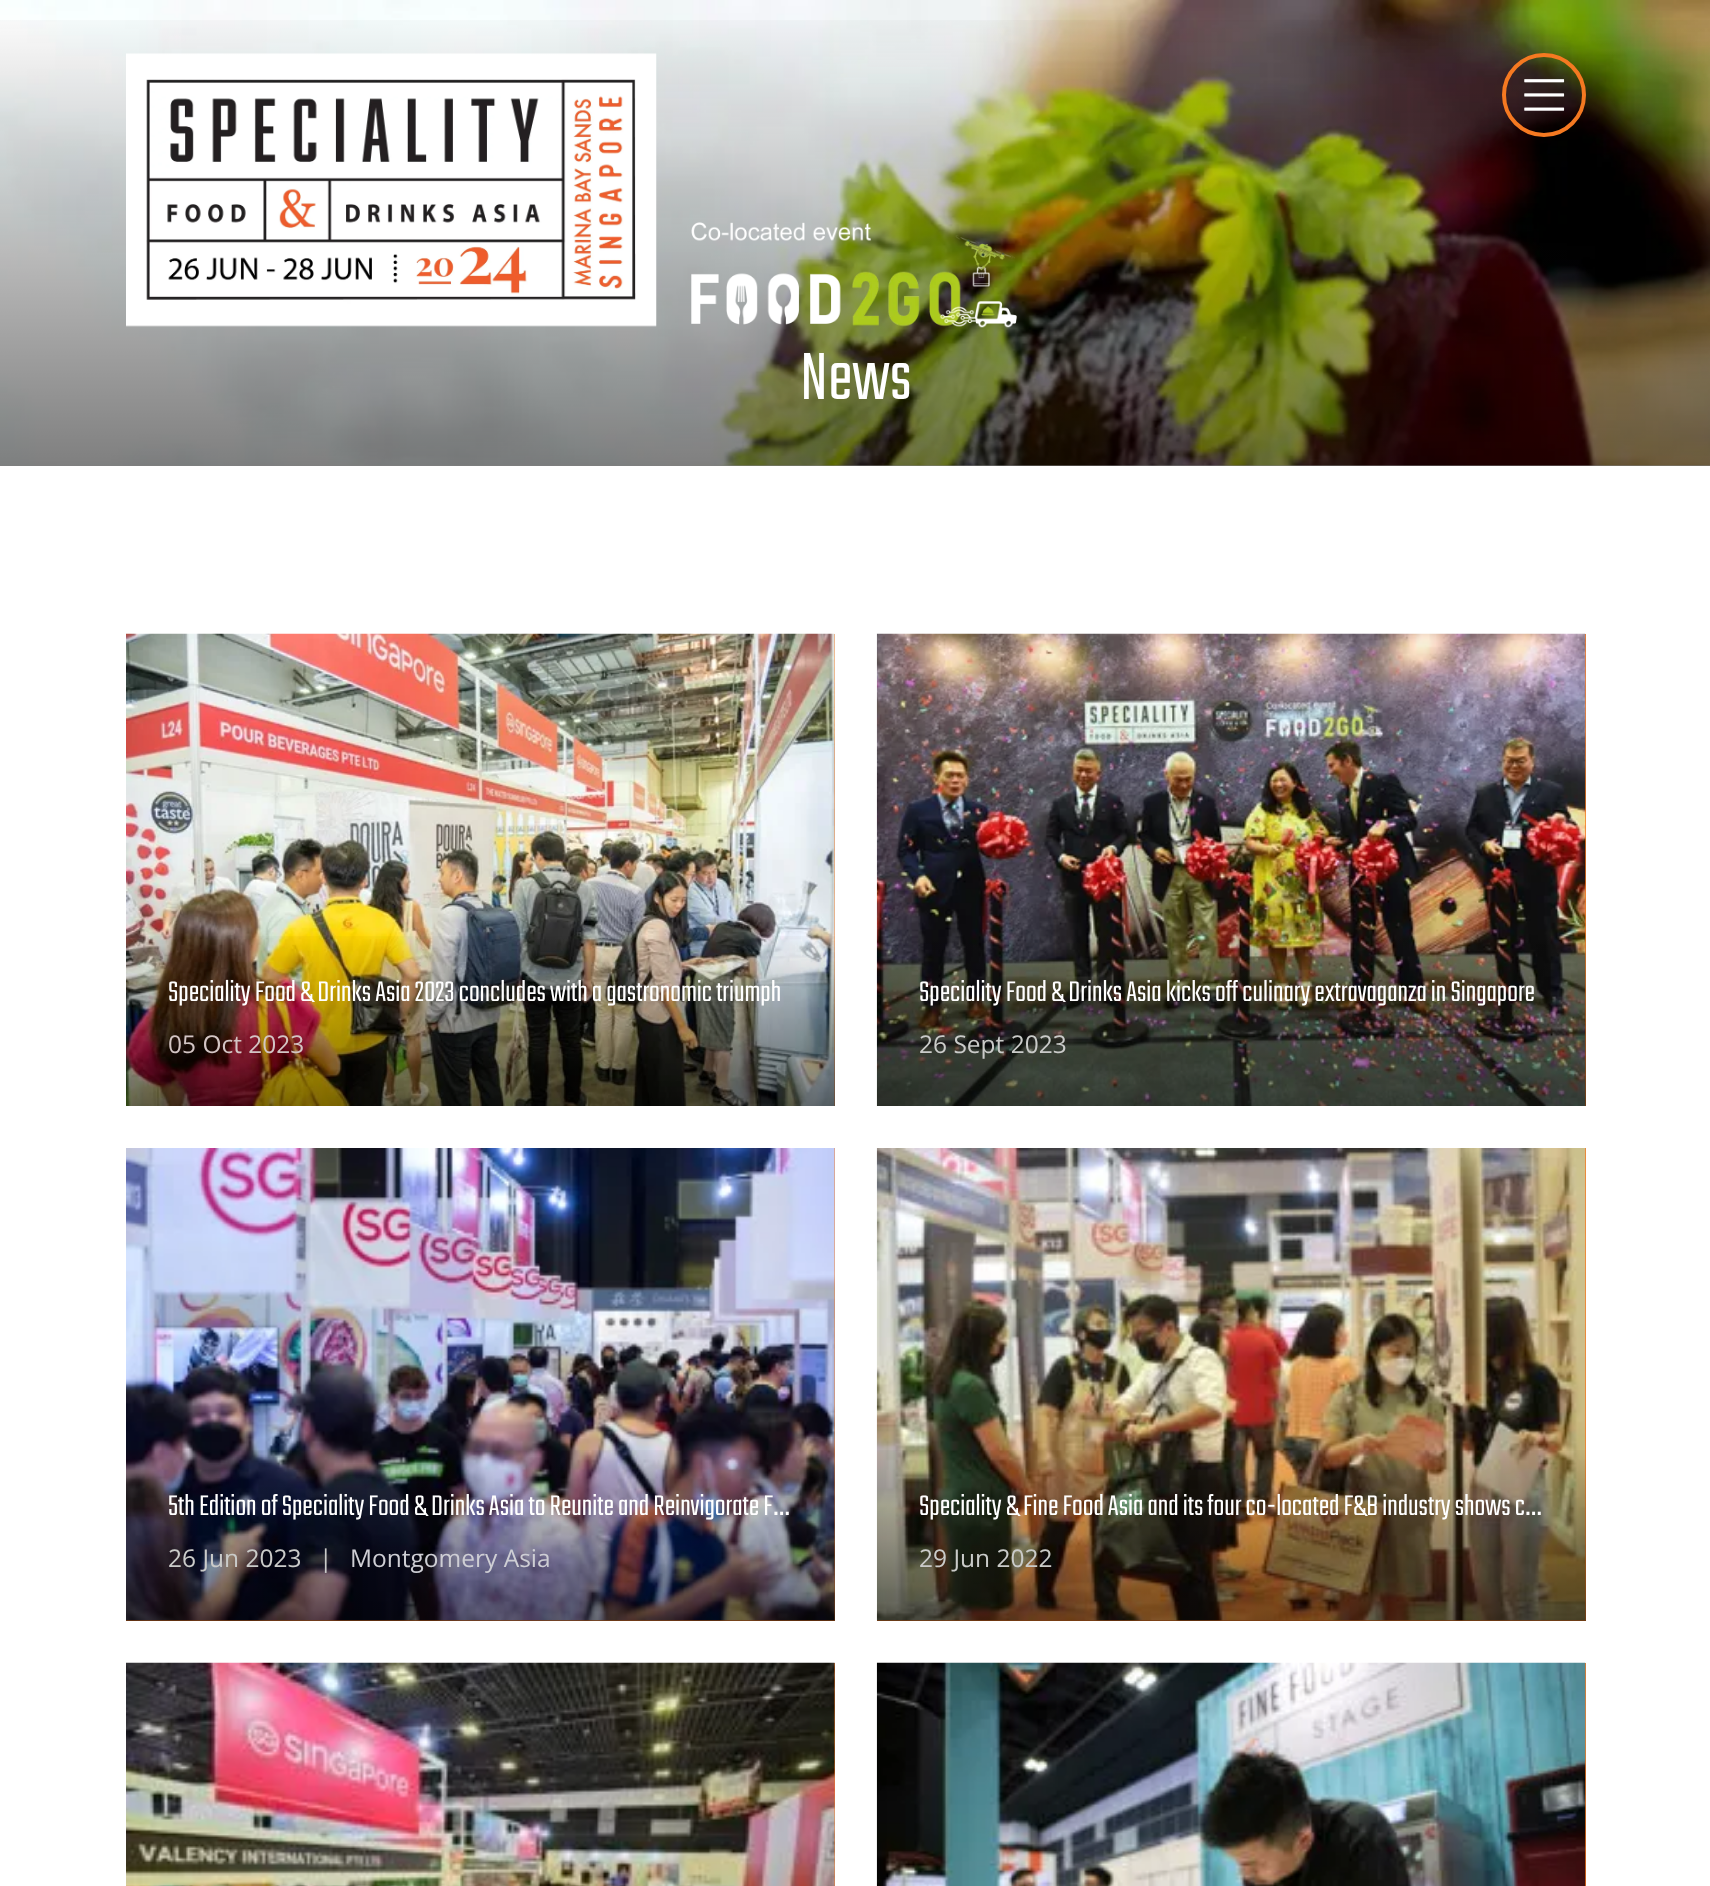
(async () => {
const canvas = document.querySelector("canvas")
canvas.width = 1710
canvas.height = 1886
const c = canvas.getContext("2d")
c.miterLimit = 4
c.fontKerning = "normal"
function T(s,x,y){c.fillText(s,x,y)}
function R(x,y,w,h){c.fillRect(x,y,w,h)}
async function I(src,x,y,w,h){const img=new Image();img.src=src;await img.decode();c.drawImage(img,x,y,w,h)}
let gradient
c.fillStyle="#fff"
R(0,0,1710,1886)
await I("4.png",0,0,1710,466)
gradient = c.createLinearGradient(856,0,856,466)
gradient.addColorStop(0,"#00000000")
gradient.addColorStop(1,"#00000080")
c.fillStyle = gradient
R(0,20,1710,446)
await I("1.png",126,53,531,274)
await I("2.png",691,222,326,106)
c.beginPath()
c.arc(1544,95,40,0,7)
c.strokeStyle="#f57921"
c.lineWidth=4
c.stroke()
await I("3.png",1524,79,41,32)
c.font="300 74px Teko"
c.fillStyle="#fff"
T("News",800,399)
c.fillStyle="#f57921"
R(834,634,1,472)
await I("5.png",126,633,709,473)
gradient = c.createLinearGradient(480,928,480,1106)
gradient.addColorStop(0,"#00000000")
gradient.addColorStop(1,"#00000080")
c.fillStyle = gradient
R(126,936,709,170)
c.font="300 31.5px Teko"
c.fillStyle="#fff"
T("Speciality Food & Drinks Asia 2023 concludes with a gastronomic triumph",168,1001)
c.font="24.5px Open Sans"
c.fillStyle="#d3c5c4"
T("05 Oct 2023",168,1053)
c.fillStyle="#f57921"
R(1585,634,1,472)
await I("6.png",876,633,710,473)
gradient = c.createLinearGradient(1231,928,1231,1106)
gradient.addColorStop(0,"#00000000")
gradient.addColorStop(1,"#00000080")
c.fillStyle = gradient
R(877,936,709,170)
c.font="300 31.5px Teko"
c.fillStyle="#fff"
T("Speciality Food & Drinks Asia kicks off culinary extravaganza in Singapore",919,1001)
c.font="24.5px Open Sans"
c.fillStyle="#cacbc9"
T("26 Sept 2023",919,1053)
c.fillStyle="#f57921"
R(126,1148,709,473)
await I("7.png",126,1148,709,473)
gradient = c.createLinearGradient(480,1442,480,1621)
gradient.addColorStop(0,"#00000000")
gradient.addColorStop(1,"#00000080")
c.fillStyle = gradient
R(126,1450,709,171)
c.font="300 31.5px Teko"
c.fillStyle="#fff"
T("5th Edition of Speciality Food & Drinks Asia to Reunite and Reinvigorate F…",168,1515)
c.font="24.5px Open Sans"
c.fillStyle="#cacbc9"
T("26 Jun 2023",168,1567)
T("|",319,1567)
c.fillStyle="#ceced4"
T("Montgomery Asia",350,1567)
c.fillStyle="#f57921"
R(877,1148,709,473)
await I("8.png",876,1148,710,473)
gradient = c.createLinearGradient(1231,1442,1231,1621)
gradient.addColorStop(0,"#00000000")
gradient.addColorStop(1,"#00000080")
c.fillStyle = gradient
R(877,1450,709,171)
c.font="300 31.5px Teko"
c.fillStyle="#fff"
T("Speciality & Fine Food Asia and its four co-located F&B industry shows c…",919,1515)
c.font="24.5px Open Sans"
c.fillStyle="#cacbc9"
T("29 Jun 2022",919,1567)
c.fillStyle="#f57921"
R(834,1663,1,223)
await I("9.png",126,1662,709,224)
R(1585,1663,1,223)
await I("10.png",876,1662,710,224)
})()
